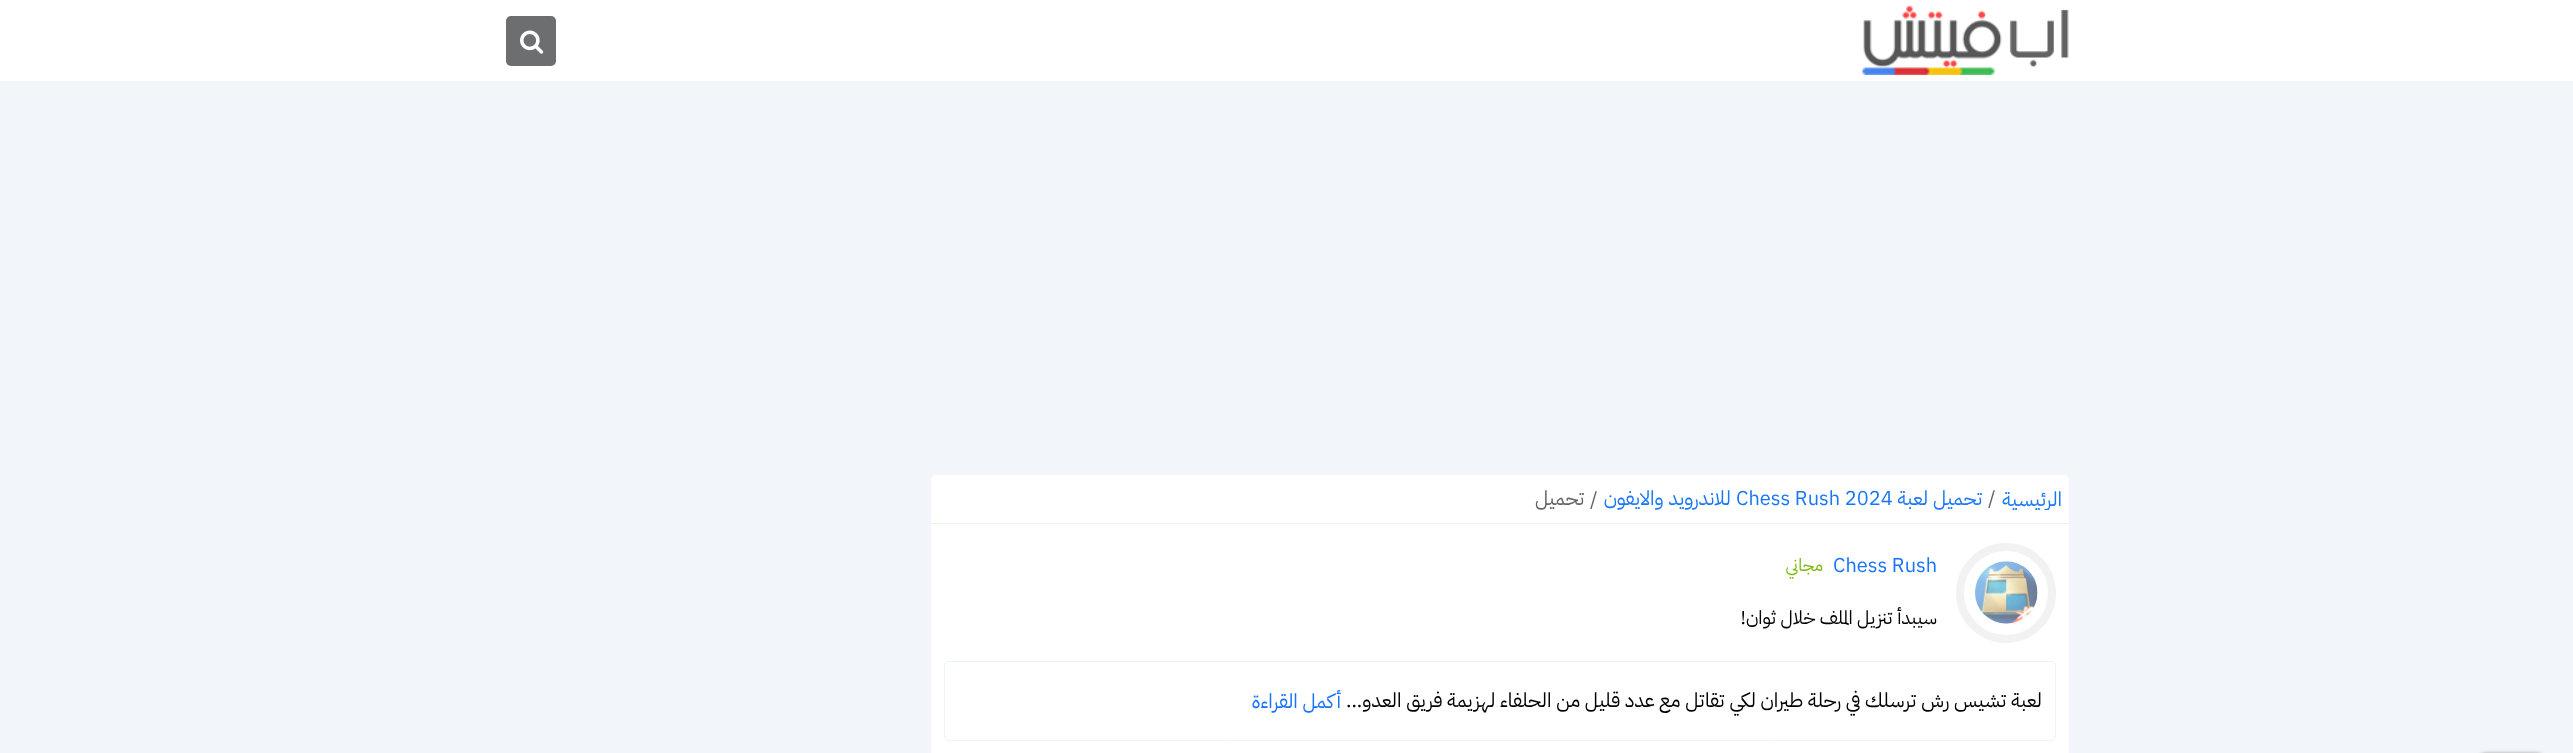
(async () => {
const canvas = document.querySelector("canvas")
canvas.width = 2573
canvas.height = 753
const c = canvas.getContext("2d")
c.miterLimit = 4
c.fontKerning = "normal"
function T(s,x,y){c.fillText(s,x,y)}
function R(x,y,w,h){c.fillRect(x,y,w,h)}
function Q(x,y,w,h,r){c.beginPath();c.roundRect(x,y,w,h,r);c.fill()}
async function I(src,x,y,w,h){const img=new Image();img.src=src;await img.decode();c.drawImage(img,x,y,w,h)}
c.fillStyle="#f2f5f9"
R(0,0,2573,753)
c.fillStyle="#fff"
R(0,0,2573,81)
await I("1.png",1862,6,207,69)
c.fillStyle="#6d6e6f"
Q(506,16,50,50,5)
await I("2.png",520,30,24,24)
c.fillStyle="#fff"
Q(931,475,1138,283,5)
c.fillStyle="#edf2f4"
R(931,523,1138,1)
c.save()
c.beginPath()
c.rect(938,488,1125,22)
c.clip()
c.direction="rtl"
c.font="20px IBM Plex Sans Arabic"
c.fillStyle="#1a77f4"
T("الرئيسية",2062,506)
c.restore()
c.font="20px IBM Plex Sans Arabic"
c.fillStyle="#646464"
T("/",1988,505)
c.direction="rtl"
c.fillStyle="#1a77f4"
T("تحميل لعبة",1982,505)
c.direction="ltr"
T("Chess Rush 2024",1736,505)
c.direction="rtl"
T("للاندرويد والايفون",1731,505)
c.direction="ltr"
c.fillStyle="#646464"
T("/",1590,506)
c.direction="rtl"
T("تحميل",1584,505)
c.beginPath()
c.arc(2006,593,46,0,7)
c.strokeStyle="#f2f2f2"
c.lineWidth=8
c.stroke()
await I("3.png",1975,561,63,63)
c.direction="ltr"
c.fillStyle="#1873ff"
T("Chess Rush",1833,572)
c.direction="rtl"
c.font="17.5px IBM Plex Sans Arabic"
c.fillStyle="#7fb911"
T("مجاني",1823,571)
c.font="18.75px IBM Plex Sans Arabic"
c.fillStyle="#000"
T("سيبدأ تنزيل الملف خلال ثوان!",1937,624)
c.beginPath()
c.roundRect(944.5,661.5,1111,79,4.5)
c.strokeStyle="#edf2f4"
c.lineWidth=1
c.stroke()
c.font="20px IBM Plex Sans Arabic"
T("لعبة تشيس رش ترسلك في رحلة طيران لكي تقاتل مع عدد قليل من الحلفاء لهزيمة فريق العدو...",2042,707)
c.fillStyle="#1873ff"
T("أكمل القراءة",1341,708)
c.fillStyle="#333"
c.filter="blur(2.5px)"
c.beginPath()
c.roundRect(2481,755,60,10,4)
c.fill()
c.filter="none"
})()
